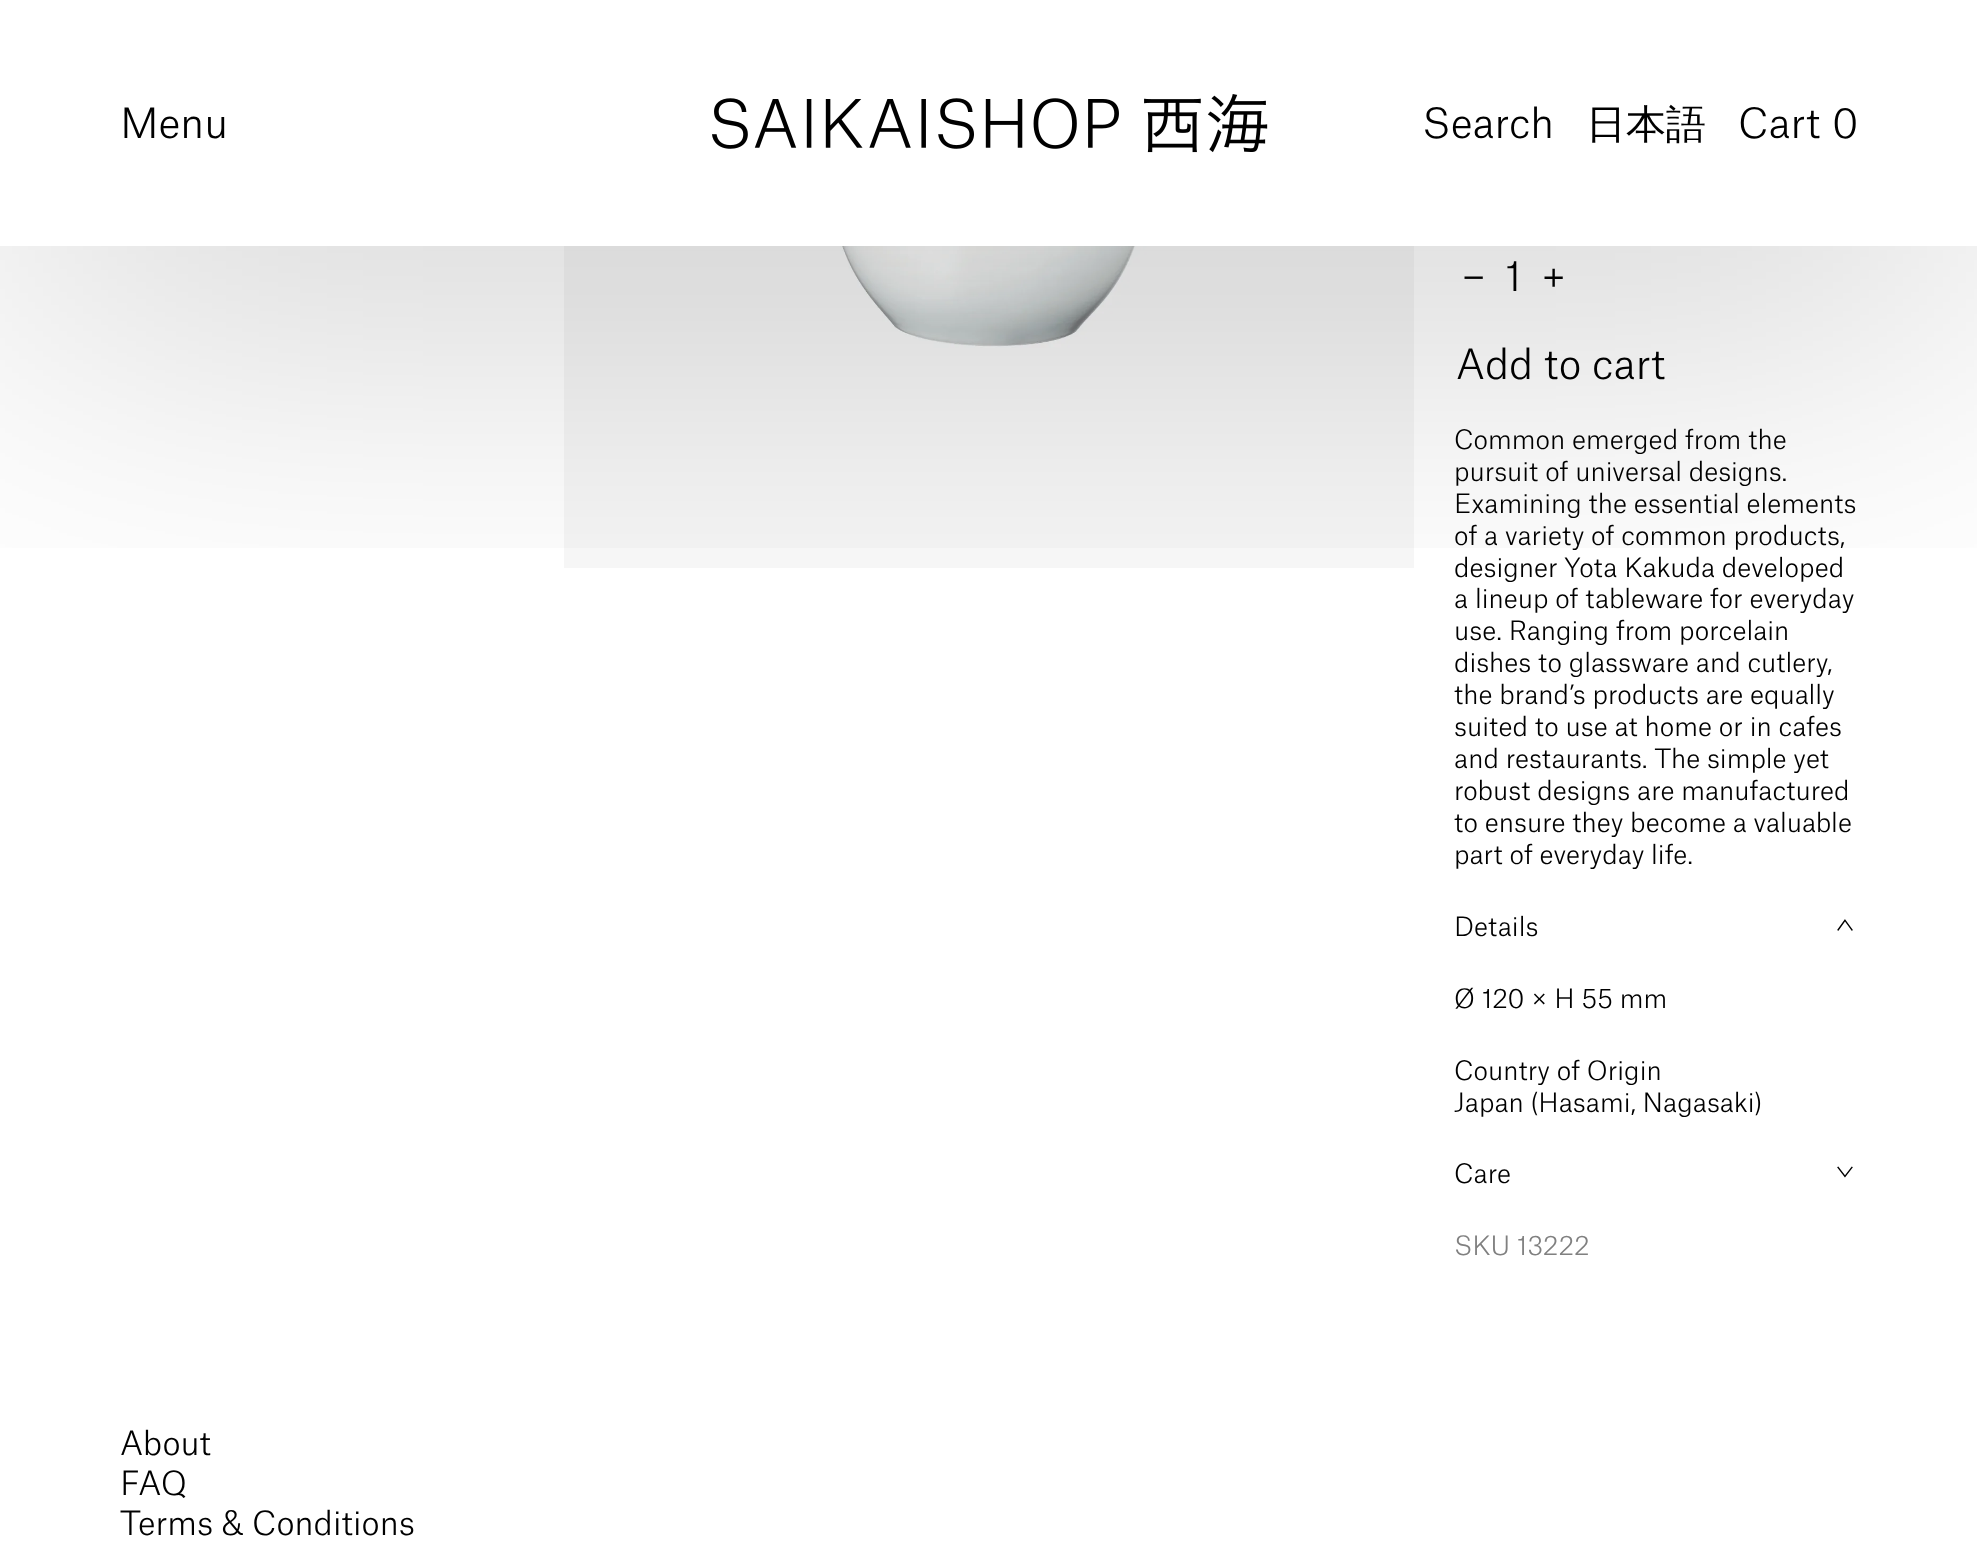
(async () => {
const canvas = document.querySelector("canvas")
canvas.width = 1977
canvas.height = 1567
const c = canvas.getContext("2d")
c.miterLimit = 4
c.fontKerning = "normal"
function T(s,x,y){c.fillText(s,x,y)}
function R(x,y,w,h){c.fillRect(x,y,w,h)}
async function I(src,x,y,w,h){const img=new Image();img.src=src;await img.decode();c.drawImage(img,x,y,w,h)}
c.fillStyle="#fff"
R(0,0,1977,1567)
c.fillStyle="#f6f6f6"
R(564,246,850,322)
await I("2.png",829,246,320,102)
c.save()
c.beginPath()
c.rect(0,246,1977,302)
c.clip()
c.fillStyle="#00000040"
c.filter="blur(196px)"
c.beginPath()
c.rect(0,32,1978,246)
c.fill()
c.filter="none"
c.restore()
c.font="300 40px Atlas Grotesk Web"
c.fillStyle="#000"
T("Menu",120,138)
await I("1.png",712,94,556,59)
T("Search",1422,138)
c.font="500 40px WenQuanYi Zen Hei"
T("日本語",1586,138)
c.font="300 40px Atlas Grotesk Web"
T("Cart",1738,138)
T("0",1832,138)
T("−",1461,292)
T("1",1505,291)
T("+",1541,292)
T("Add to cart",1456,379)
c.font="300 25.6px Atlas Grotesk Web"
T("Common emerged from the",1454,449)
T("pursuit of universal designs.",1454,481)
T("Examining the essential elements",1454,513)
T("of a variety of common products,",1454,545)
T("designer Yota Kakuda developed",1454,577)
T("a lineup of tableware for everyday",1454,608)
T("use. Ranging from porcelain",1454,640)
T("dishes to glassware and cutlery,",1454,672)
T("the brand’s products are equally",1454,704)
T("suited to use at home or in cafes",1454,736)
T("and restaurants. The simple yet",1454,768)
T("robust designs are manufactured",1454,800)
T("to ensure they become a valuable",1454,832)
T("part of everyday life.",1454,864)
T("Details",1454,936)
await I("3.png",1837,919,16,12)
T("Ø 120 × H 55 mm",1454,1008)
T("Country of Origin",1454,1080)
T("Japan (Hasami, Nagasaki)",1454,1112)
T("Care",1454,1183)
await I("4.png",1837,1166,16,12)
c.fillStyle="#808080"
T("SKU 13222",1454,1255)
c.font="300 32px Atlas Grotesk Web"
c.fillStyle="#000"
T("About",120,1455)
T("FAQ",120,1495)
T("Terms & Conditions",120,1535)
})()
